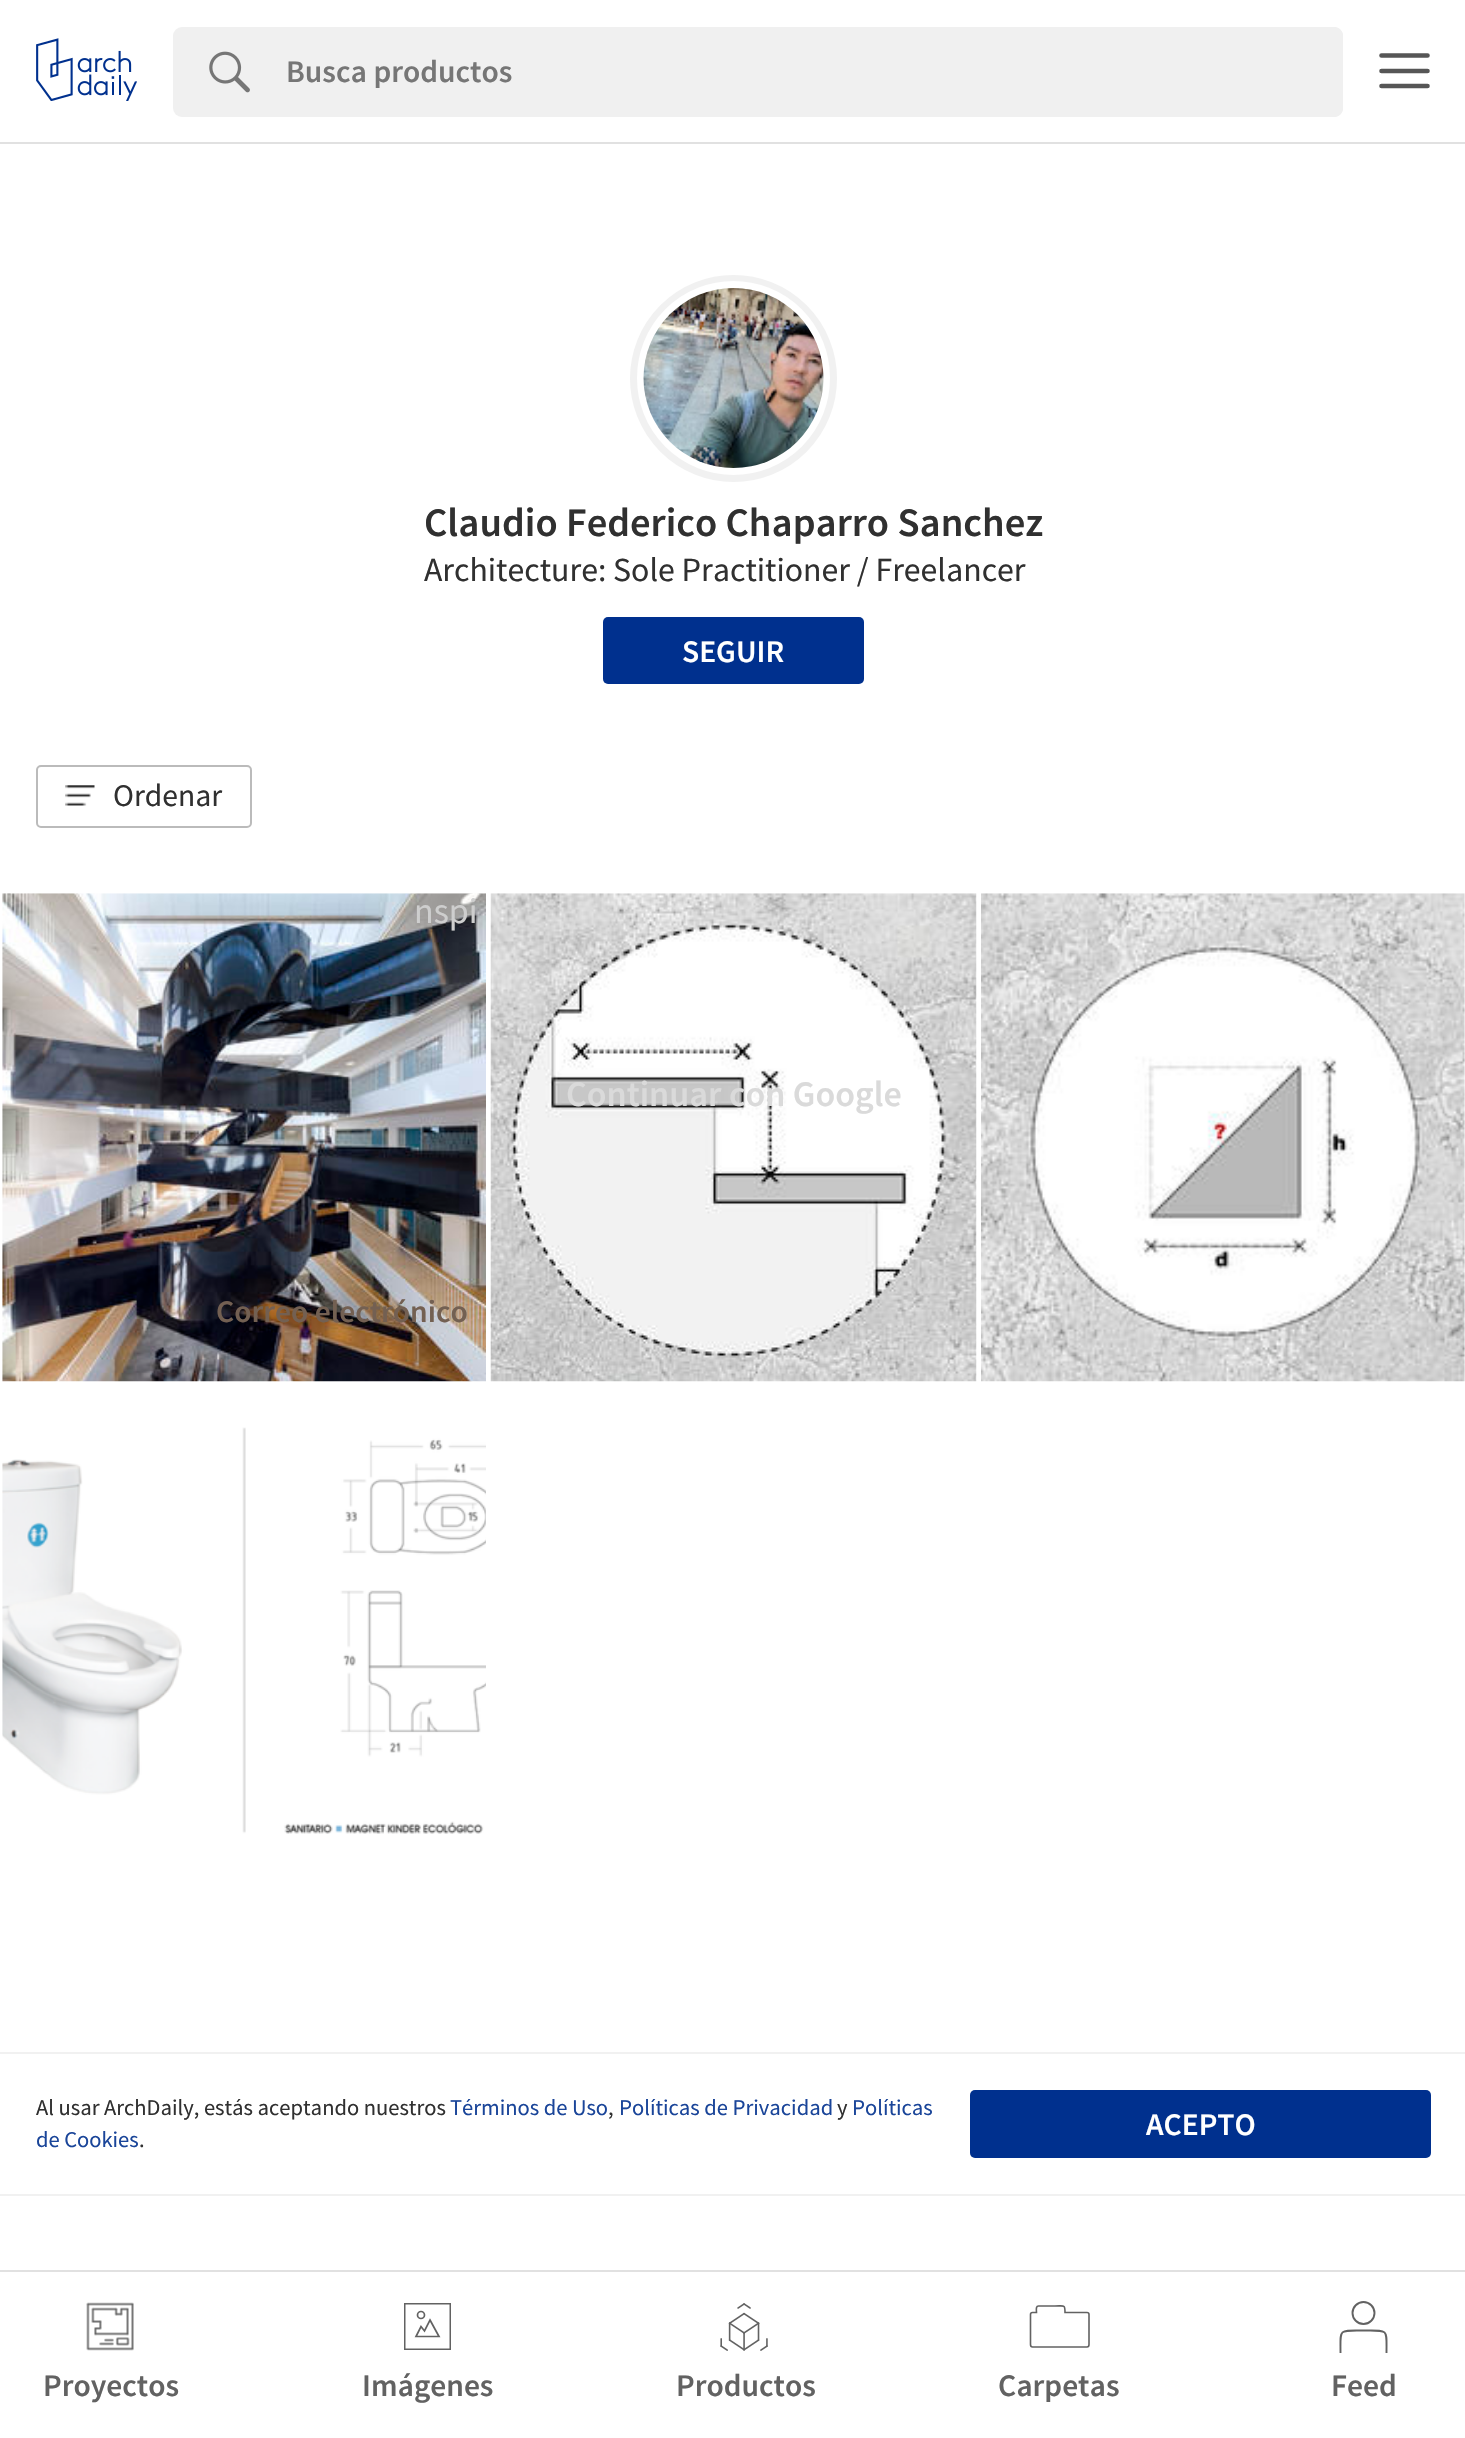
void draw(SkCanvas* canvas) {
    SkPaint paint;
    paint.setAntiAlias(true);
    auto face = [&](const char* family, int weight, float size, bool italic = false) {
        SkFontStyle style(weight, SkFontStyle::kNormal_Width,
            italic ? SkFontStyle::kItalic_Slant : SkFontStyle::kUpright_Slant);
        SkFont result(fontMgr->matchFamilyStyle(family, style), size);
        result.setSubpixel(true);
        return result;
    };
    auto write = [&](const char* s, float x, float y, const SkFont& font, SkColor color) {
        SkPaint ink(SkColor4f::FromColor(color));
        ink.setAntiAlias(true);
        canvas->drawString(s, x, y, font, ink);
    };
    auto block = [&](float x, float y, float w, float h, SkColor color) {
        SkPaint ink(SkColor4f::FromColor(color));
        ink.setAntiAlias(true);
        canvas->drawRect(SkRect::MakeXYWH(x, y, w, h), ink);
    };
    auto card = [&](float x, float y, float w, float h, float radius, SkColor color) {
        SkPaint ink(SkColor4f::FromColor(color));
        ink.setAntiAlias(true);
        canvas->drawRoundRect(SkRect::MakeXYWH(x, y, w, h), radius, radius, ink);
    };
    auto paste = [&](const char* path, float x, float y, float w, float h) {
        auto image = SkImages::DeferredFromEncodedData(SkData::MakeFromFileName(path));
        canvas->drawImageRect(image, SkRect::MakeXYWH(x, y, w, h), SkSamplingOptions());
    };
    canvas->clear(SK_ColorWHITE);
    block(0, 142, 1465, 2, SkColorSetRGB(225, 225, 225));
    paste("pic1.png", 36, 38, 101, 63);
    card(173, 27, 1170, 90, 9, SkColorSetRGB(240, 240, 240));
    paste("pic2.png", 209, 51, 41, 42);
    paint.setColor(SkColorSetRGB(240, 240, 240));
    canvas->drawPath(SkPathBuilder().moveTo(286, 27).lineTo(1334, 27).cubicTo(1339, 27, 1343, 31, 1343, 36).lineTo(1343, 108).cubicTo(1343, 113, 1339, 117, 1334, 117).lineTo(286, 117).close().detach(), paint);
    auto kFont1 = face("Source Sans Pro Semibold", 600, 31.5f);
    write("Busca productos", 286, 82, kFont1, SkColorSetRGB(118, 118, 118));
    paint.setStyle(SkPaint::kStroke_Style);
    paint.setStrokeWidth(4.6f);
    paint.setStrokeCap(SkPaint::kRound_Cap);
    paint.setColor(SkColorSetRGB(86, 86, 86));
    canvas->drawPath(SkPathBuilder().moveTo(1381.5f, 55.5f).lineTo(1427.5f, 55.5f).moveTo(1381.5f, 71).lineTo(1427.5f, 71).moveTo(1381.5f, 86).lineTo(1427.5f, 86).detach(), paint);
    paint.setStrokeWidth(14);
    paint.setStrokeCap(SkPaint::kButt_Cap);
    paint.setColor(SkColorSetRGB(241, 241, 241));
    canvas->drawCircle(733.5f, 378.5f, 96.5f, paint);
    paint.setStrokeWidth(7);
    paint.setColor(SK_ColorWHITE);
    canvas->drawRoundRect(SkRect::MakeXYWH(640.5f, 284.5f, 186, 187), 93, 93, paint);
    paste("pic3.png", 643, 288, 181, 180);
    auto kFont2 = face("Source Sans Pro Semibold", 600, 40.5f);
    write("Claudio Federico Chaparro Sanchez", 424, 536, kFont2, SkColorSetRGB(48, 48, 48));
    auto kFont3 = face("Source Sans Pro", 400, 33.75f);
    write("Architecture: Sole Practitioner / Freelancer", 424, 581, kFont3, SkColorSetRGB(48, 48, 48));
    card(603, 617, 261, 67, 5, SkColorSetRGB(0, 48, 142));
    write("SEGUIR", 682, 662, kFont1, SK_ColorWHITE);
    paint.setStrokeWidth(2);
    paint.setColor(SkColorSetRGB(187, 187, 187));
    canvas->drawRoundRect(SkRect::MakeXYWH(37, 766, 214, 61), 4, 4, paint);
    paste("pic4.png", 65, 785, 30, 21);
    auto kFont4 = face("Source Sans Pro", 400, 31.5f);
    write("Ordenar", 113, 806, kFont4, SkColorSetRGB(48, 48, 48));
    paste("pic5.png", 2, 893, 484, 489);
    paste("pic6.png", 490, 893, 487, 489);
    paste("pic7.png", 981, 893, 484, 489);
    paste("pic8.png", 2, 1427, 484, 407);
    auto kFont5 = face("Source Sans Pro", 400, 36);
    write("nspi", 414, 923, kFont5, SkColorSetRGB(206, 206, 206));
    auto kFont6 = face("Source Sans Pro Semibold", 600, 36);
    write("Continuar con Google", 566, 1106, kFont6, SkColorSetRGB(218, 218, 218));
    write("Correo electrónico", 216, 1322, kFont1, SkColorSetRGB(115, 96, 82));
    block(0, 2270, 1465, 2, SkColorSetRGB(225, 225, 225));
    block(0, 2052, 1465, 2, SkColorSetRGB(241, 241, 241));
    block(0, 2194, 1465, 2, SkColorSetRGB(241, 241, 241));
    auto kFont7 = face("Source Sans Pro", 400, 22.5f);
    write("Al usar ArchDaily, estás aceptando nuestros", 36, 2115, kFont7, SkColorSetRGB(48, 48, 48));
    write("Términos de Uso", 450, 2115, kFont7, SkColorSetRGB(26, 69, 153));
    write(",", 608, 2115, kFont7, SkColorSetRGB(48, 48, 48));
    write("Políticas de Privacidad", 619, 2115, kFont7, SkColorSetRGB(26, 69, 153));
    write("y", 837, 2115, kFont7, SkColorSetRGB(48, 48, 48));
    write("Políticas", 852, 2115, kFont7, SkColorSetRGB(26, 69, 153));
    write("de Cookies", 36, 2147, kFont7, SkColorSetRGB(26, 69, 153));
    write(".", 139, 2147, kFont7, SkColorSetRGB(48, 48, 48));
    card(970, 2090, 461, 68, 5, SkColorSetRGB(0, 48, 142));
    write("ACEPTO", 1146, 2135, kFont1, SK_ColorWHITE);
    paste("pic9.png", 86, 2302, 48, 49);
    write("Proyectos", 43, 2396, kFont1, SkColorSetRGB(98, 98, 98));
    paint.setStrokeWidth(1.5f);
    paint.setColor(SkColorSetRGB(98, 98, 98));
    canvas->drawRect(SkRect::MakeXYWH(404.75f, 2303.75f, 45.5f, 45.5f), paint);
    paint.setStrokeWidth(1.7f);
    paint.setStrokeCap(SkPaint::kRound_Cap);
    canvas->drawPath(SkPathBuilder().moveTo(430, 2320).lineTo(439, 2336.5f).lineTo(416, 2336.5f).lineTo(421, 2326.5f).lineTo(424.5f, 2331).close().detach(), paint);
    paint.setStrokeCap(SkPaint::kButt_Cap);
    canvas->drawCircle(421, 2315, 3.5f, paint);
    write("Imágenes", 362, 2396, kFont1, SkColorSetRGB(98, 98, 98));
    paste("pic10.png", 720, 2303, 48, 48);
    write("Productos", 676, 2396, kFont1, SkColorSetRGB(98, 98, 98));
    paint.setStrokeWidth(1.6f);
    canvas->drawPath(SkPathBuilder().moveTo(1038.5f, 2306).cubicTo(1035.5f, 2306, 1036.5f, 2310.5f, 1036.5f, 2312.5f).lineTo(1032.5f, 2312.5f).cubicTo(1031.5f, 2312.5f, 1030.5f, 2313, 1030.5f, 2314.5f).lineTo(1030.5f, 2344.5f).cubicTo(1030.5f, 2346, 1031.5f, 2347, 1032.5f, 2347).lineTo(1087, 2347).cubicTo(1088.5f, 2347, 1089, 2346, 1089, 2344.5f).lineTo(1089, 2314.5f).cubicTo(1089, 2313, 1088.5f, 2312.5f, 1087, 2312.5f).lineTo(1065, 2312.5f).cubicTo(1065, 2304, 1064, 2306, 1055, 2306).close().detach(), paint);
    write("Carpetas", 998, 2396, kFont1, SkColorSetRGB(98, 98, 98));
    paint.setStrokeWidth(1.9f);
    canvas->drawCircle(1363.5f, 2313, 11, paint);
    paint.setStrokeCap(SkPaint::kSquare_Cap);
    canvas->drawPath(SkPathBuilder().moveTo(1386.5f, 2352).cubicTo(1386.5f, 2328.5f, 1389, 2330.5f, 1363.5f, 2330.5f).cubicTo(1338, 2330.5f, 1340.5f, 2328.5f, 1340.5f, 2352).detach(), paint);
    write("Feed", 1331, 2396, kFont1, SkColorSetRGB(98, 98, 98));
}
